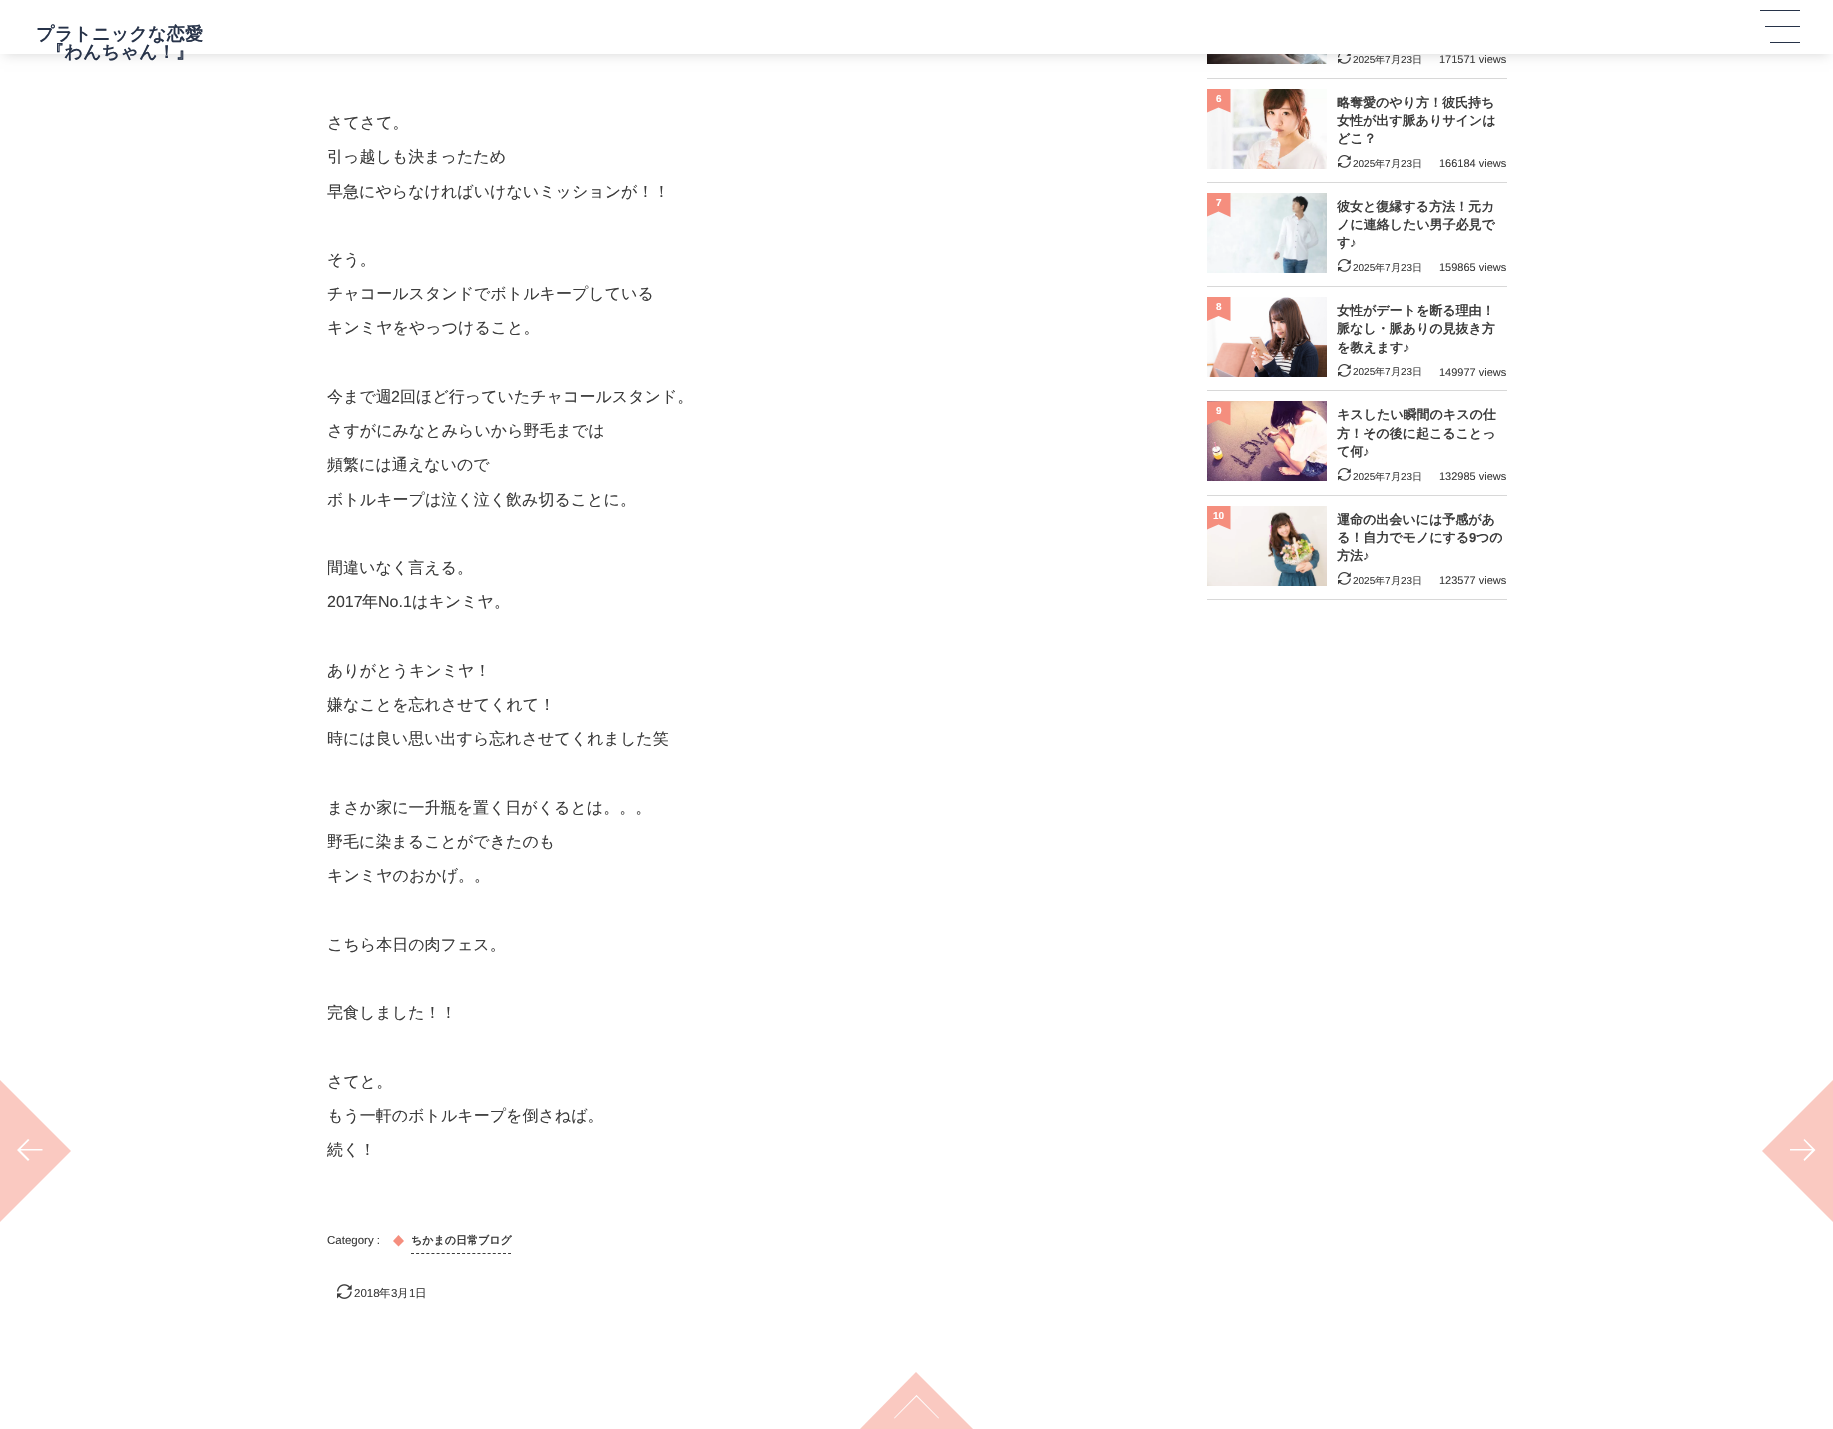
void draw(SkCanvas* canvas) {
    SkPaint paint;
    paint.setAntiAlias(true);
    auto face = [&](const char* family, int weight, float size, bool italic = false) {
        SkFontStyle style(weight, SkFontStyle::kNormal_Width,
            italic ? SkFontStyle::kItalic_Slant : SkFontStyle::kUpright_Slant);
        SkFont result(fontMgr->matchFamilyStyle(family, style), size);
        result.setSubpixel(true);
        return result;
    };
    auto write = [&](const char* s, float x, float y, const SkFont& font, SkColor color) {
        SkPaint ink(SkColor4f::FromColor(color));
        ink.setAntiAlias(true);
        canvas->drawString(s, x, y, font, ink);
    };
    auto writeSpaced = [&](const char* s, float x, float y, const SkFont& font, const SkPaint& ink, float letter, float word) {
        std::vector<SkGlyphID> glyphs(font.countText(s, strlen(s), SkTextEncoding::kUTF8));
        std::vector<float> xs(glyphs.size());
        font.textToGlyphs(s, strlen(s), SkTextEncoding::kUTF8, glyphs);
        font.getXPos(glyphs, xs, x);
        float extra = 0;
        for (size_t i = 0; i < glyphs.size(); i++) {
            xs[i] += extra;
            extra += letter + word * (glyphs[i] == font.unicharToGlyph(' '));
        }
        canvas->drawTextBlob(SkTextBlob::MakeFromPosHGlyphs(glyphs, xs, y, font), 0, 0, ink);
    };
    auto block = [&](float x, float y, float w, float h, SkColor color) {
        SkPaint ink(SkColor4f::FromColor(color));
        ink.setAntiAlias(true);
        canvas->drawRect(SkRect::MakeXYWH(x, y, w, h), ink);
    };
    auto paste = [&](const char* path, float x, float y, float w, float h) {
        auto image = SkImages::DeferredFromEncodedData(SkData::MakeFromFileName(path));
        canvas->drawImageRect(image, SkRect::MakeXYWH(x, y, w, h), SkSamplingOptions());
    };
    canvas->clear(SK_ColorWHITE);
    paste("pic2.png", 1207, 54, 120, 10);
    paste("pic3.png", 1338, 54, 13, 10);
    paint.setColor(SkColorSetARGB(41, 0, 0, 0));
    paint.setMaskFilter(SkMaskFilter::MakeBlur(kNormal_SkBlurStyle, 6));
    canvas->drawRect(SkRect::MakeXYWH(4, -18, 1825, 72), paint);
    paint.setMaskFilter(nullptr);
    block(0, 0, 1833, 54, SK_ColorWHITE);
    auto kFont1 = face("WenQuanYi Zen Hei", 700, 18);
    paint.setColor(SkColorSetRGB(39, 51, 73));
    writeSpaced("プラトニックな恋愛", 36, 40, kFont1, paint, 0.25f, 0);
    writeSpaced("『わんちゃん！』", 46, 58, kFont1, paint, 0.25f, 0);
    block(1760, 10, 40, 1, SkColorSetRGB(39, 51, 73));
    block(1765, 26, 35, 1, SkColorSetRGB(39, 51, 73));
    block(1770, 42, 30, 1, SkColorSetRGB(39, 51, 73));
    auto kFont2 = face("WenQuanYi Zen Hei", 500, 16);
    write("さてさて。", 327, 128, kFont2, SkColorSetRGB(60, 60, 60));
    write("引っ越しも決まったため", 327, 162, kFont2, SkColorSetRGB(60, 60, 60));
    write("早急にやらなければいけないミッションが！！", 327, 197, kFont2, SkColorSetRGB(60, 60, 60));
    write("そう。", 327, 265, kFont2, SkColorSetRGB(60, 60, 60));
    write("チャコールスタンドでボトルキープしている", 327, 299, kFont2, SkColorSetRGB(60, 60, 60));
    write("キンミヤをやっつけること。", 327, 333, kFont2, SkColorSetRGB(60, 60, 60));
    write("今まで週", 327, 402, kFont2, SkColorSetRGB(60, 60, 60));
    auto kFont3 = face("Liberation Sans", 400, 16);
    write("2", 391, 402, kFont3, SkColorSetRGB(60, 60, 60));
    write("回ほど行っていたチャコールスタンド。", 400, 402, kFont2, SkColorSetRGB(60, 60, 60));
    write("さすがにみなとみらいから野毛までは", 327, 436, kFont2, SkColorSetRGB(60, 60, 60));
    write("頻繁には通えないので", 327, 470, kFont2, SkColorSetRGB(60, 60, 60));
    write("ボトルキープは泣く泣く飲み切ることに。", 327, 505, kFont2, SkColorSetRGB(60, 60, 60));
    write("間違いなく言える。", 327, 573, kFont2, SkColorSetRGB(60, 60, 60));
    write("2017", 327, 607, kFont3, SkColorSetRGB(60, 60, 60));
    write("年", 362, 607, kFont2, SkColorSetRGB(60, 60, 60));
    write("No.1", 378, 607, kFont3, SkColorSetRGB(60, 60, 60));
    write("はキンミヤ。", 412, 607, kFont2, SkColorSetRGB(60, 60, 60));
    write("ありがとうキンミヤ！", 327, 676, kFont2, SkColorSetRGB(60, 60, 60));
    write("嫌なことを忘れさせてくれて！", 327, 710, kFont2, SkColorSetRGB(60, 60, 60));
    write("時には良い思い出すら忘れさせてくれました笑", 327, 744, kFont2, SkColorSetRGB(60, 60, 60));
    write("まさか家に一升瓶を置く日がくるとは。。。", 327, 813, kFont2, SkColorSetRGB(60, 60, 60));
    write("野毛に染まることができたのも", 327, 847, kFont2, SkColorSetRGB(60, 60, 60));
    write("キンミヤのおかげ。。", 327, 881, kFont2, SkColorSetRGB(60, 60, 60));
    write("こちら本日の肉フェス。", 327, 950, kFont2, SkColorSetRGB(60, 60, 60));
    write("完食しました！！", 327, 1018, kFont2, SkColorSetRGB(60, 60, 60));
    write("さてと。", 327, 1087, kFont2, SkColorSetRGB(60, 60, 60));
    write("もう一軒のボトルキープを倒さねば。", 327, 1121, kFont2, SkColorSetRGB(60, 60, 60));
    write("続く！", 327, 1155, kFont2, SkColorSetRGB(60, 60, 60));
    auto kFont4 = face("Liberation Sans", 400, 11.5f);
    write("Category :", 327, 1244, kFont4, SkColorSetRGB(60, 60, 60));
    paint.setColor(SkColorSetRGB(245, 142, 126));
    canvas->drawPath(SkPathBuilder().moveTo(398.5f, 1235).lineTo(404, 1241).lineTo(398.5f, 1246.5f).lineTo(393, 1241).close().detach(), paint);
    paint.setStyle(SkPaint::kStroke_Style);
    paint.setStrokeWidth(1);
    paint.setColor(SkColorSetRGB(60, 60, 60));
    paint.setPathEffect(SkDashPathEffect::Make({{3, 2.11f}}, 0));
    canvas->drawPath(SkPathBuilder().moveTo(411, 1253.5f).lineTo(511, 1253.5f).detach(), paint);
    paint.setPathEffect(nullptr);
    auto kFont5 = face("WenQuanYi Zen Hei", 700, 11);
    write("ちかまの日常ブログ", 411, 1244, kFont5, SkColorSetRGB(60, 60, 60));
    paste("pic1.png", 337, 1284, 15, 15);
    write("2018", 354, 1297, kFont4, SkColorSetRGB(60, 60, 60));
    auto kFont6 = face("WenQuanYi Zen Hei", 500, 11.5f);
    write("年", 379, 1297, kFont6, SkColorSetRGB(60, 60, 60));
    write("3", 391, 1297, kFont4, SkColorSetRGB(60, 60, 60));
    write("月", 397, 1297, kFont6, SkColorSetRGB(60, 60, 60));
    write("1", 409, 1297, kFont4, SkColorSetRGB(60, 60, 60));
    write("日", 415, 1297, kFont6, SkColorSetRGB(60, 60, 60));
    paint.setStyle(SkPaint::kFill_Style);
    paint.setColor(SkColorSetRGB(250, 201, 193));
    canvas->drawPath(SkPathBuilder().moveTo(0, 1080).lineTo(71, 1151).lineTo(0, 1222).lineTo(-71, 1151).close().detach(), paint);
    paint.setColor(SK_ColorWHITE);
    canvas->drawPath(SkPathBuilder().moveTo(28, 1161).lineTo(29.5f, 1159.5f).lineTo(20.5f, 1150.5f).lineTo(42.5f, 1150.5f).lineTo(42.5f, 1149).lineTo(20.5f, 1149).lineTo(29.5f, 1140).lineTo(28, 1139).lineTo(17, 1150).close().detach(), paint);
    paint.setColor(SkColorSetRGB(250, 201, 193));
    canvas->drawPath(SkPathBuilder().moveTo(1833, 1080).lineTo(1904, 1151).lineTo(1833, 1222).lineTo(1762, 1151).close().detach(), paint);
    paint.setColor(SK_ColorWHITE);
    canvas->drawPath(SkPathBuilder().moveTo(1804.5f, 1139).lineTo(1803.5f, 1140).lineTo(1812, 1149).lineTo(1790, 1149).lineTo(1790, 1150.5f).lineTo(1812, 1150.5f).lineTo(1803.5f, 1159.5f).lineTo(1804.5f, 1161).lineTo(1815.5f, 1150).close().detach(), paint);
    block(1207, 78, 300, 1, SkColorSetRGB(216, 216, 216));
    auto kFont7 = face("Liberation Sans", 400, 10);
    write("2025", 1353, 63, kFont7, SkColorSetRGB(60, 60, 60));
    auto kFont8 = face("WenQuanYi Zen Hei", 500, 10);
    write("年", 1375, 63, kFont8, SkColorSetRGB(60, 60, 60));
    write("7", 1385, 63, kFont7, SkColorSetRGB(60, 60, 60));
    write("月", 1391, 63, kFont8, SkColorSetRGB(60, 60, 60));
    write("23", 1401, 63, kFont7, SkColorSetRGB(60, 60, 60));
    write("日", 1412, 63, kFont8, SkColorSetRGB(60, 60, 60));
    auto kFont9 = face("Liberation Sans", 400, 11);
    write("171571 views", 1439, 63, kFont9, SkColorSetRGB(60, 60, 60));
    block(1207, 182, 300, 1, SkColorSetRGB(216, 216, 216));
    paste("pic4.png", 1207, 89, 120, 80);
    paint.setColor(SkColorSetRGB(245, 142, 126));
    canvas->drawPath(SkPathBuilder().moveTo(1207, 89).lineTo(1230.5f, 89).lineTo(1230.5f, 112.5f).lineTo(1218.5f, 107.5f).lineTo(1207, 112.5f).close().detach(), paint);
    auto kFont10 = face("Liberation Sans", 700, 10);
    write("6", 1216, 102, kFont10, SK_ColorWHITE);
    auto kFont11 = face("WenQuanYi Zen Hei", 700, 13);
    write("略奪愛のやり方！彼氏持ち", 1337, 107, kFont11, SkColorSetRGB(60, 60, 60));
    write("女性が出す脈ありサインは", 1337, 125, kFont11, SkColorSetRGB(60, 60, 60));
    write("どこ？", 1337, 143, kFont11, SkColorSetRGB(60, 60, 60));
    paste("pic5.png", 1338, 155, 13, 13);
    write("2025", 1353, 167, kFont7, SkColorSetRGB(60, 60, 60));
    write("年", 1375, 167, kFont8, SkColorSetRGB(60, 60, 60));
    write("7", 1385, 167, kFont7, SkColorSetRGB(60, 60, 60));
    write("月", 1391, 167, kFont8, SkColorSetRGB(60, 60, 60));
    write("23", 1401, 167, kFont7, SkColorSetRGB(60, 60, 60));
    write("日", 1412, 167, kFont8, SkColorSetRGB(60, 60, 60));
    write("166184 views", 1439, 167, kFont9, SkColorSetRGB(60, 60, 60));
    block(1207, 286, 300, 1, SkColorSetRGB(216, 216, 216));
    paste("pic6.png", 1207, 193, 120, 80);
    canvas->drawPath(SkPathBuilder().moveTo(1207, 193).lineTo(1230.5f, 193).lineTo(1230.5f, 217).lineTo(1218.5f, 211.5f).lineTo(1207, 216.5f).close().detach(), paint);
    write("7", 1216, 206, kFont10, SK_ColorWHITE);
    write("彼女と復縁する方法！元カ", 1337, 211, kFont11, SkColorSetRGB(60, 60, 60));
    write("ノに連絡したい男子必見で", 1337, 229, kFont11, SkColorSetRGB(60, 60, 60));
    write("す", 1337, 247, kFont11, SkColorSetRGB(60, 60, 60));
    auto kFont12 = face("Liberation Sans", 700, 13);
    write("♪", 1350, 247, kFont12, SkColorSetRGB(60, 60, 60));
    paste("pic5.png", 1338, 259, 13, 13);
    write("2025", 1353, 271, kFont7, SkColorSetRGB(60, 60, 60));
    write("年", 1375, 271, kFont8, SkColorSetRGB(60, 60, 60));
    write("7", 1385, 271, kFont7, SkColorSetRGB(60, 60, 60));
    write("月", 1391, 271, kFont8, SkColorSetRGB(60, 60, 60));
    write("23", 1401, 271, kFont7, SkColorSetRGB(60, 60, 60));
    write("日", 1412, 271, kFont8, SkColorSetRGB(60, 60, 60));
    write("159865 views", 1439, 271, kFont9, SkColorSetRGB(60, 60, 60));
    block(1207, 390, 300, 1, SkColorSetRGB(216, 216, 216));
    paste("pic7.png", 1207, 297, 120, 80);
    canvas->drawPath(SkPathBuilder().moveTo(1230.5f, 297).lineTo(1230.5f, 321).lineTo(1218.5f, 316).lineTo(1207, 321).lineTo(1207, 297).close().detach(), paint);
    write("8", 1216, 310, kFont10, SK_ColorWHITE);
    write("女性がデートを断る理由！", 1337, 315, kFont11, SkColorSetRGB(60, 60, 60));
    write("脈なし・脈ありの見抜き方", 1337, 333, kFont11, SkColorSetRGB(60, 60, 60));
    write("を教えます", 1337, 352, kFont11, SkColorSetRGB(60, 60, 60));
    write("♪", 1403, 352, kFont12, SkColorSetRGB(60, 60, 60));
    paste("pic5.png", 1338, 364, 13, 13);
    write("2025", 1353, 375, kFont7, SkColorSetRGB(60, 60, 60));
    write("年", 1375, 375, kFont8, SkColorSetRGB(60, 60, 60));
    write("7", 1385, 375, kFont7, SkColorSetRGB(60, 60, 60));
    write("月", 1391, 375, kFont8, SkColorSetRGB(60, 60, 60));
    write("23", 1401, 375, kFont7, SkColorSetRGB(60, 60, 60));
    write("日", 1412, 375, kFont8, SkColorSetRGB(60, 60, 60));
    write("149977 views", 1439, 376, kFont9, SkColorSetRGB(60, 60, 60));
    block(1207, 495, 300, 1, SkColorSetRGB(216, 216, 216));
    paste("pic8.png", 1207, 401, 120, 80);
    canvas->drawPath(SkPathBuilder().moveTo(1230.5f, 401.5f).lineTo(1230.5f, 425).lineTo(1229.5f, 425).lineTo(1218.5f, 420).lineTo(1207, 425).lineTo(1207, 401.5f).close().detach(), paint);
    write("9", 1216, 414, kFont10, SK_ColorWHITE);
    write("キスしたい瞬間のキスの仕", 1337, 419, kFont11, SkColorSetRGB(60, 60, 60));
    write("方！その後に起こることっ", 1337, 438, kFont11, SkColorSetRGB(60, 60, 60));
    write("て何", 1337, 456, kFont11, SkColorSetRGB(60, 60, 60));
    write("♪", 1363, 456, kFont12, SkColorSetRGB(60, 60, 60));
    paste("pic5.png", 1338, 468, 13, 13);
    write("2025", 1353, 480, kFont7, SkColorSetRGB(60, 60, 60));
    write("年", 1375, 480, kFont8, SkColorSetRGB(60, 60, 60));
    write("7", 1385, 480, kFont7, SkColorSetRGB(60, 60, 60));
    write("月", 1391, 480, kFont8, SkColorSetRGB(60, 60, 60));
    write("23", 1401, 480, kFont7, SkColorSetRGB(60, 60, 60));
    write("日", 1412, 480, kFont8, SkColorSetRGB(60, 60, 60));
    write("132985 views", 1439, 480, kFont9, SkColorSetRGB(60, 60, 60));
    block(1207, 599, 300, 1, SkColorSetRGB(216, 216, 216));
    paste("pic9.png", 1207, 506, 120, 80);
    canvas->drawPath(SkPathBuilder().moveTo(1207, 506).lineTo(1230.5f, 506).lineTo(1230.5f, 529.5f).lineTo(1218.5f, 524.5f).lineTo(1207, 529.5f).close().detach(), paint);
    write("10", 1213, 519, kFont10, SK_ColorWHITE);
    write("運命の出会いには予感があ", 1337, 524, kFont11, SkColorSetRGB(60, 60, 60));
    write("る！自力でモノにする", 1337, 542, kFont11, SkColorSetRGB(60, 60, 60));
    write("9", 1469, 542, kFont12, SkColorSetRGB(60, 60, 60));
    write("つの", 1476, 542, kFont11, SkColorSetRGB(60, 60, 60));
    write("方法", 1337, 560, kFont11, SkColorSetRGB(60, 60, 60));
    write("♪", 1363, 560, kFont12, SkColorSetRGB(60, 60, 60));
    paste("pic5.png", 1338, 572, 13, 13);
    write("2025", 1353, 584, kFont7, SkColorSetRGB(60, 60, 60));
    write("年", 1375, 584, kFont8, SkColorSetRGB(60, 60, 60));
    write("7", 1385, 584, kFont7, SkColorSetRGB(60, 60, 60));
    write("月", 1391, 584, kFont8, SkColorSetRGB(60, 60, 60));
    write("23", 1401, 584, kFont7, SkColorSetRGB(60, 60, 60));
    write("日", 1412, 584, kFont8, SkColorSetRGB(60, 60, 60));
    write("123577 views", 1439, 584, kFont9, SkColorSetRGB(60, 60, 60));
    paint.setColor(SkColorSetRGB(250, 201, 193));
    canvas->drawPath(SkPathBuilder().moveTo(916, 1372).lineTo(973, 1429).lineTo(916, 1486).lineTo(860, 1429).close().detach(), paint);
    paint.setColor(SK_ColorWHITE);
    canvas->drawPath(SkPathBuilder().moveTo(894, 1418).lineTo(916.5f, 1395).lineTo(917, 1396).lineTo(894.5f, 1418.5f).close().detach(), paint);
    canvas->drawPath(SkPathBuilder().moveTo(916.5f, 1395).lineTo(939, 1418).lineTo(938.5f, 1418.5f).lineTo(916, 1396).close().detach(), paint);
}
